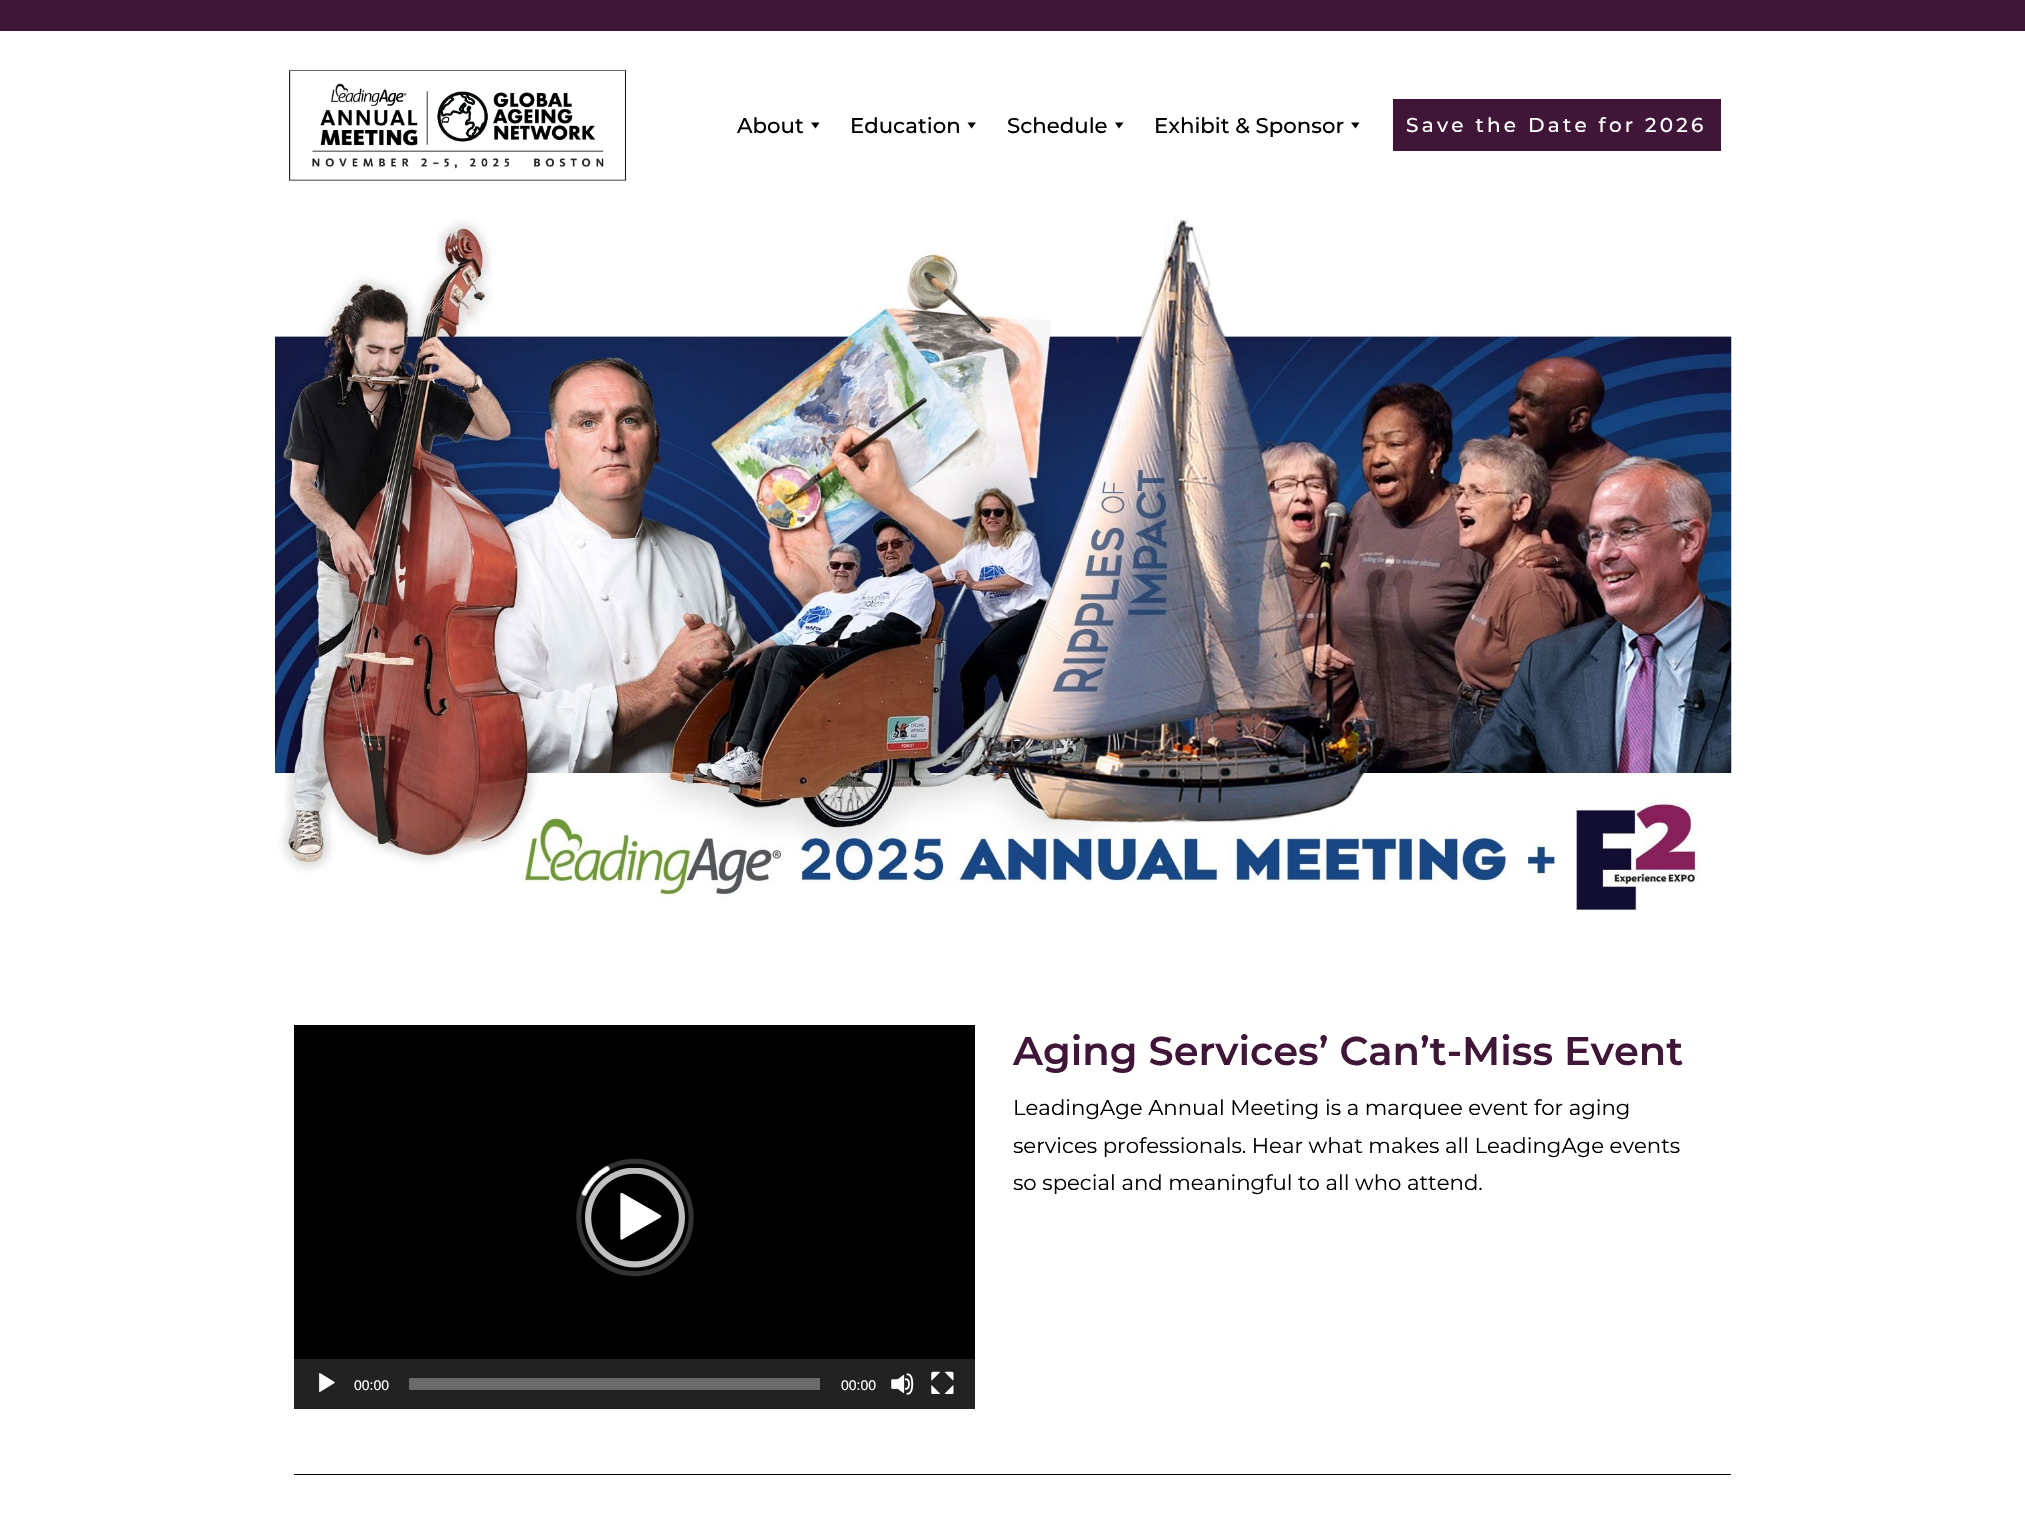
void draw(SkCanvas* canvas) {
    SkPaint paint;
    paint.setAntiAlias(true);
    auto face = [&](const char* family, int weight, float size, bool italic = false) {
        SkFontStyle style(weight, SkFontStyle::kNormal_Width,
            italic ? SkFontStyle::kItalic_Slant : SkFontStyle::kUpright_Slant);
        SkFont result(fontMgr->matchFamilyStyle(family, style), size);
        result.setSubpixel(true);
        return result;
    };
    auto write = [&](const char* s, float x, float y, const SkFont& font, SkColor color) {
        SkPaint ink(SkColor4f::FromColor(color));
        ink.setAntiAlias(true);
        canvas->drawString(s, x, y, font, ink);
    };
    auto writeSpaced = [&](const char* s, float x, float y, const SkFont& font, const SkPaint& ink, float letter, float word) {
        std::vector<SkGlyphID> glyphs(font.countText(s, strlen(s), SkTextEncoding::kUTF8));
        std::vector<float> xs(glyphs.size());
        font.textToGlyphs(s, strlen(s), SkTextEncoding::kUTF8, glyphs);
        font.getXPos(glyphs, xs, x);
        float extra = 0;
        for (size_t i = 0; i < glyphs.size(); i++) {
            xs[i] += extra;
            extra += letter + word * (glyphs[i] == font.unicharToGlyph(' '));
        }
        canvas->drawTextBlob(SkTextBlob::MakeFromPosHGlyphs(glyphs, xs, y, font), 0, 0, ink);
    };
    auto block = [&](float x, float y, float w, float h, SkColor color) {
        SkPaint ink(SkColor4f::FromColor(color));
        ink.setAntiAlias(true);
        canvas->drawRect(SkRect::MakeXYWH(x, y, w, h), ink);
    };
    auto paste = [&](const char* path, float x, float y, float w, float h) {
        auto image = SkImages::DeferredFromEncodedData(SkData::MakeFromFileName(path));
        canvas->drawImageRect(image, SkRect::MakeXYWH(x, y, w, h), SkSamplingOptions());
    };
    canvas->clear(SK_ColorWHITE);
    block(0, 0, 2025, 31, SkColorSetRGB(64, 22, 56));
    paste("pic1.png", 289, 69, 338, 112);
    auto kFont1 = face("Montserrat", 500, 21.25f);
    write("About", 737, 133, kFont1, SK_ColorBLACK);
    paint.setColor(SK_ColorBLACK);
    canvas->drawPath(SkPathBuilder().moveTo(819.5f, 122.5f).lineTo(815.5f, 128.5f).lineTo(811, 122.5f).close().detach(), paint);
    write("Education", 850, 133, kFont1, SK_ColorBLACK);
    canvas->drawPath(SkPathBuilder().moveTo(976, 122.5f).lineTo(971.5f, 128.5f).lineTo(967.5f, 122.5f).close().detach(), paint);
    write("Schedule", 1007, 133, kFont1, SK_ColorBLACK);
    canvas->drawPath(SkPathBuilder().moveTo(1123.5f, 122.5f).lineTo(1119, 128.5f).lineTo(1115, 122.5f).close().detach(), paint);
    write("Exhibit & Sponsor", 1154, 133, kFont1, SK_ColorBLACK);
    canvas->drawPath(SkPathBuilder().moveTo(1359.5f, 122.5f).lineTo(1355.5f, 128.5f).lineTo(1351, 122.5f).close().detach(), paint);
    block(1393, 99, 328, 52, SkColorSetRGB(64, 22, 56));
    auto kFont2 = face("Montserrat", 500, 20);
    paint.setColor(SK_ColorWHITE);
    writeSpaced("Save the Date for 2026", 1406, 132, kFont2, paint, 3.25f, 0);
    paste("pic2.png", 275, 219, 1457, 696);
    auto kFont3 = face("Montserrat", 600, 40);
    write("Aging Services’ Can’t-Miss Event", 1013, 1065, kFont3, SkColorSetRGB(64, 22, 56));
    auto kFont4 = face("Montserrat", 400, 21.25f);
    write("LeadingAge Annual Meeting is a marquee event for aging", 1013, 1115, kFont4, SK_ColorBLACK);
    write("services professionals. Hear what makes all LeadingAge events", 1013, 1153, kFont4, SK_ColorBLACK);
    write("so special and meaningful to all who attend.", 1013, 1190, kFont4, SK_ColorBLACK);
    paste("pic3.png", 294, 1025, 681, 334);
    paste("pic4.png", 585, 1168, 100, 100);
    block(294, 1359, 681, 50, SkColorSetRGB(34, 34, 34));
    paste("pic5.png", 319, 1373, 16, 19);
    auto kFont5 = face("Liberation Sans", 400, 14);
    write("00:00", 354, 1390, kFont5, SK_ColorWHITE);
    block(409, 1378, 411, 12, SkColorSetRGB(107, 107, 107));
    write("00:00", 841, 1390, kFont5, SK_ColorWHITE);
    paste("pic6.png", 891, 1373, 23, 22);
    paste("pic7.png", 931, 1371, 23, 23);
    block(294, 1474, 1437, 1, SK_ColorBLACK);
}
